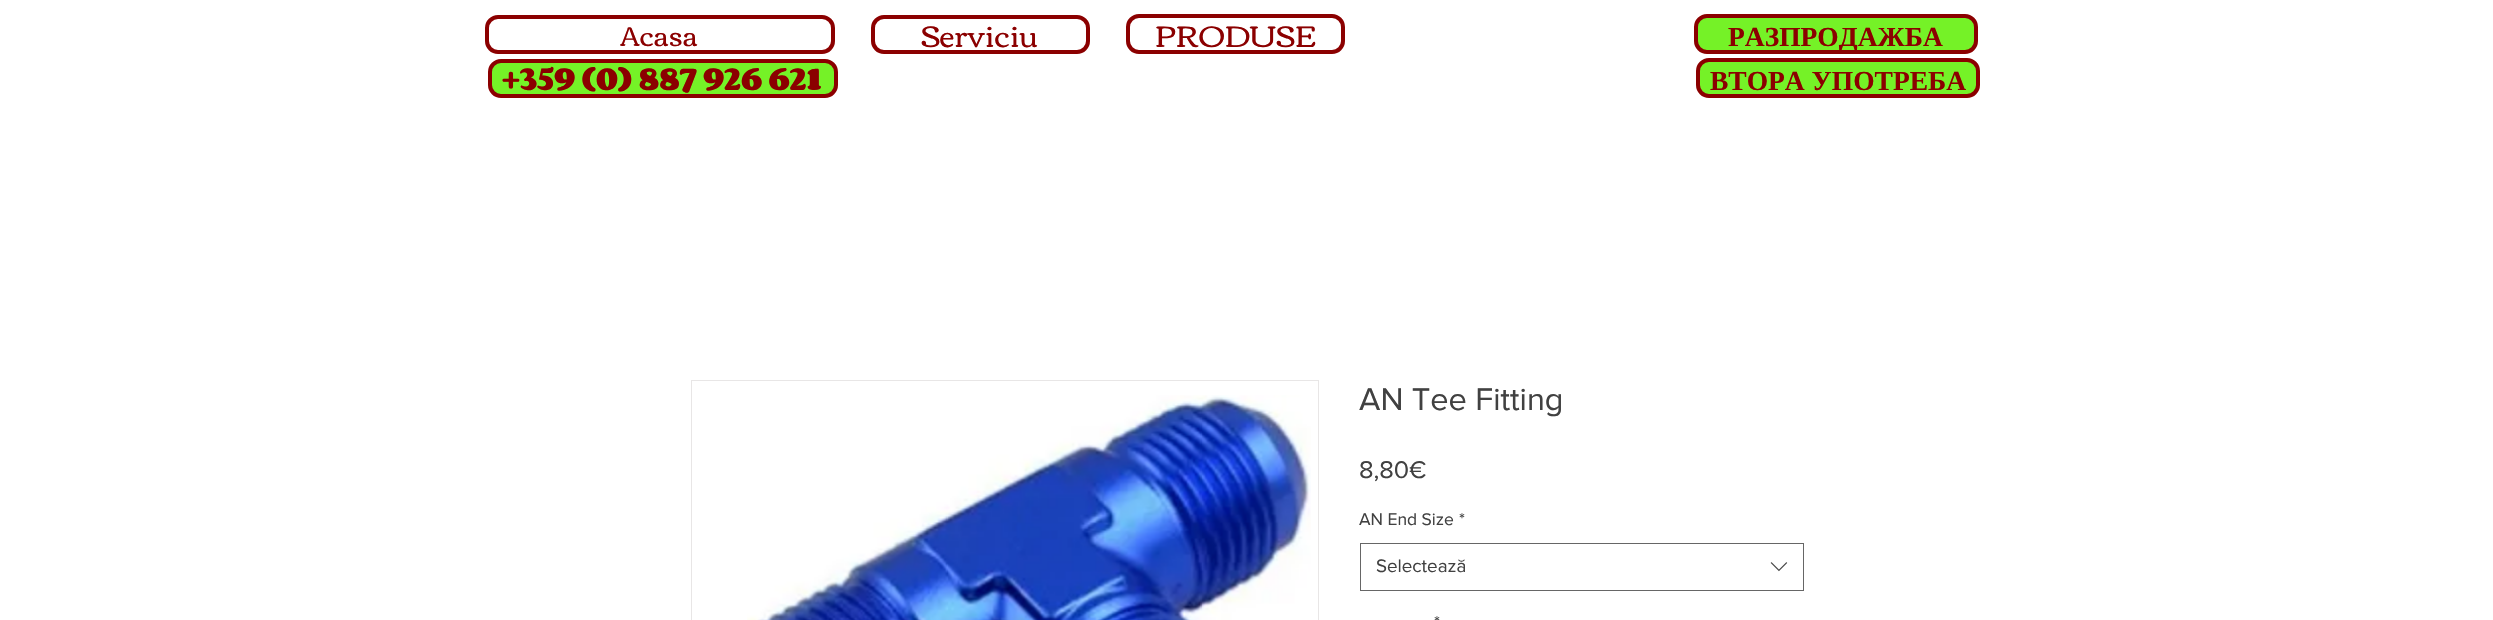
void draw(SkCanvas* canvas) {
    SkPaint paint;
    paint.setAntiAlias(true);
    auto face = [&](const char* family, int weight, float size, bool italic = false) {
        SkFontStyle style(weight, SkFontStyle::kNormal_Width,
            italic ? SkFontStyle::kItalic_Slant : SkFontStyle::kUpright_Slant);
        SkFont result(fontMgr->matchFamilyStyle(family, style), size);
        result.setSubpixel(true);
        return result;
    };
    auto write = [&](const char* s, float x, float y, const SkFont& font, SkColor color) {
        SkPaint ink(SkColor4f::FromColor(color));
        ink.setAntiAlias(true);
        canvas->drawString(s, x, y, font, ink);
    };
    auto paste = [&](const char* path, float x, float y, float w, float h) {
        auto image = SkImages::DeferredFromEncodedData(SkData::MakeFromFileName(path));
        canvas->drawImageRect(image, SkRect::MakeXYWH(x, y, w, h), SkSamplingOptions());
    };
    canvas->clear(SK_ColorWHITE);
    paint.setStyle(SkPaint::kStroke_Style);
    paint.setStrokeWidth(4);
    paint.setColor(SkColorSetRGB(139, 0, 0));
    canvas->drawRoundRect(SkRect::MakeXYWH(487, 17, 346, 35), 11, 11, paint);
    auto kFont1 = face("Corben", 400, 27.5f);
    write("Acasa", 620, 46, kFont1, SkColorSetRGB(139, 0, 0));
    canvas->drawRoundRect(SkRect::MakeXYWH(873, 17, 215, 35), 11, 11, paint);
    auto kFont2 = face("Corben", 400, 30);
    write("Serviciu", 921, 47, kFont2, SkColorSetRGB(139, 0, 0));
    canvas->drawRoundRect(SkRect::MakeXYWH(1128, 16, 215, 36), 11, 11, paint);
    write("PRODUSE", 1155, 47, kFont2, SkColorSetRGB(139, 0, 0));
    paint.setStyle(SkPaint::kFill_Style);
    paint.setColor(SkColorSetRGB(117, 242, 39));
    canvas->drawRoundRect(SkRect::MakeXYWH(1696, 16, 280, 36), 11, 11, paint);
    paint.setStyle(SkPaint::kStroke_Style);
    paint.setColor(SkColorSetRGB(139, 0, 0));
    canvas->drawRoundRect(SkRect::MakeXYWH(1696, 16, 280, 36), 11, 11, paint);
    auto kFont3 = face("Liberation Serif", 700, 27.5f);
    write("РАЗПРОДАЖБА", 1728, 46, kFont3, SkColorSetRGB(139, 0, 0));
    paint.setStyle(SkPaint::kFill_Style);
    paint.setColor(SkColorSetRGB(117, 242, 39));
    canvas->drawRoundRect(SkRect::MakeXYWH(490, 61, 346, 35), 11, 11, paint);
    paint.setStyle(SkPaint::kStroke_Style);
    paint.setColor(SkColorSetRGB(139, 0, 0));
    canvas->drawRoundRect(SkRect::MakeXYWH(490, 61, 346, 35), 11, 11, paint);
    auto kFont4 = face("Corben", 700, 27.5f);
    write("+359 (0) 887 926 621", 502, 90, kFont4, SkColorSetRGB(139, 0, 0));
    paint.setStyle(SkPaint::kFill_Style);
    paint.setColor(SkColorSetRGB(117, 242, 39));
    canvas->drawRoundRect(SkRect::MakeXYWH(1698, 60, 280, 36), 11, 11, paint);
    paint.setStyle(SkPaint::kStroke_Style);
    paint.setColor(SkColorSetRGB(139, 0, 0));
    canvas->drawRoundRect(SkRect::MakeXYWH(1698, 60, 280, 36), 11, 11, paint);
    write("ВТОРА УПОТРЕБА", 1710, 90, kFont3, SkColorSetRGB(139, 0, 0));
    paint.setStrokeWidth(1);
    paint.setColor(SkColorSetRGB(232, 230, 230));
    canvas->drawRect(SkRect::MakeXYWH(691.5f, 380.5f, 627, 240), paint);
    paste("pic1.png", 747, 395, 564, 225);
    auto kFont5 = face("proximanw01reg", 400, 32.5f);
    write("AN Tee Fitting", 1359, 410, kFont5, SkColorSetRGB(65, 65, 65));
    auto kFont6 = face("proximanw01reg", 400, 25);
    write("8,80€", 1359, 478, kFont6, SkColorSetRGB(65, 65, 65));
    auto kFont7 = face("proximanw01reg", 400, 17.5f);
    write("AN End Size", 1359, 525, kFont7, SkColorSetRGB(65, 65, 65));
    write("*", 1459, 525, kFont7, SkColorSetRGB(65, 65, 65));
    paint.setColor(SkColorSetRGB(102, 102, 102));
    canvas->drawRect(SkRect::MakeXYWH(1360.5f, 543.5f, 443, 47), paint);
    auto kFont8 = face("proximanw01reg", 400, 18.75f);
    write("Selectează", 1376, 572, kFont8, SkColorSetRGB(65, 65, 65));
    paste("pic2.png", 1770, 562, 18, 10);
    write("*", 1434, 628, kFont7, SkColorSetRGB(65, 65, 65));
}
